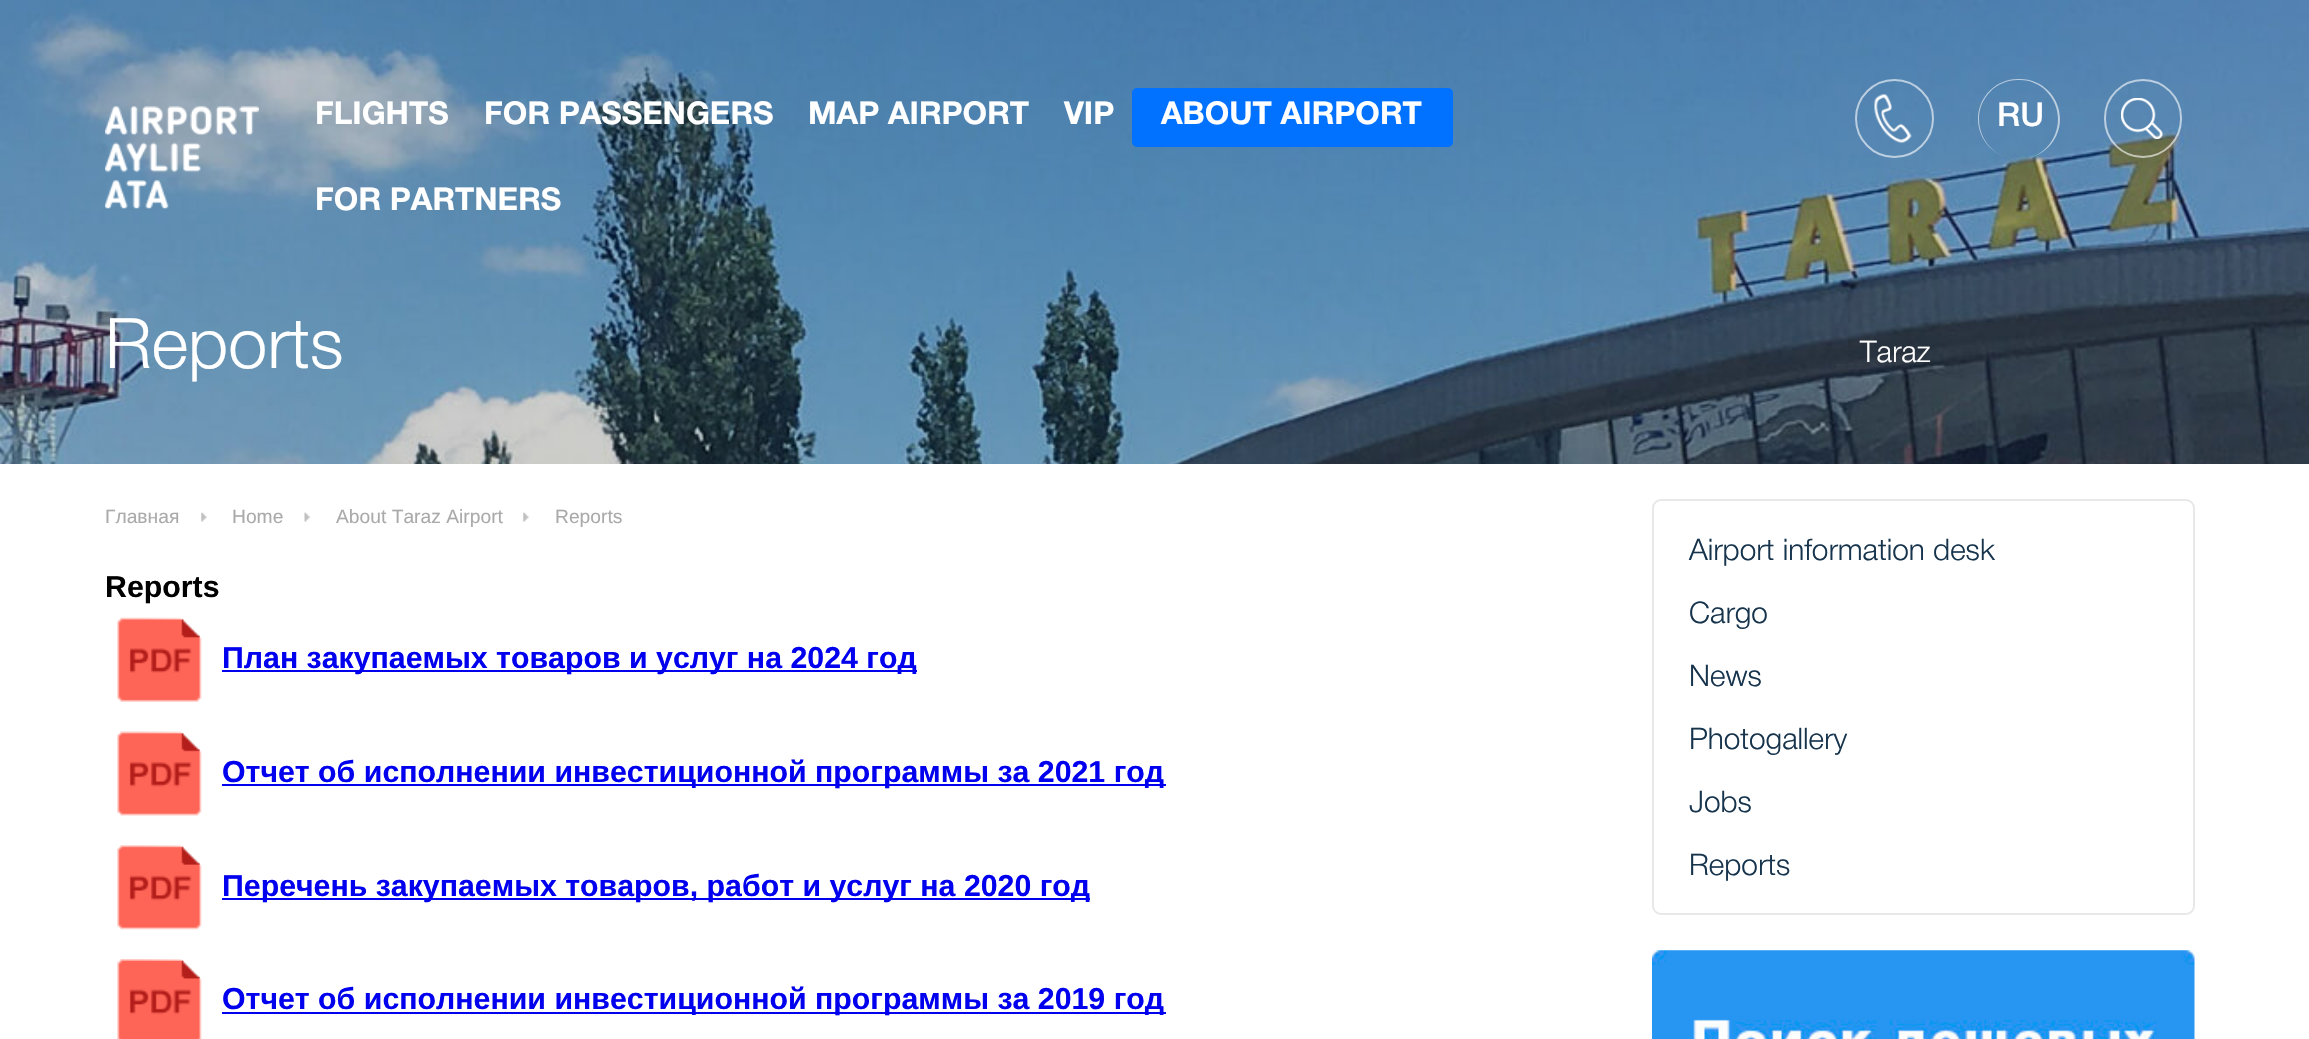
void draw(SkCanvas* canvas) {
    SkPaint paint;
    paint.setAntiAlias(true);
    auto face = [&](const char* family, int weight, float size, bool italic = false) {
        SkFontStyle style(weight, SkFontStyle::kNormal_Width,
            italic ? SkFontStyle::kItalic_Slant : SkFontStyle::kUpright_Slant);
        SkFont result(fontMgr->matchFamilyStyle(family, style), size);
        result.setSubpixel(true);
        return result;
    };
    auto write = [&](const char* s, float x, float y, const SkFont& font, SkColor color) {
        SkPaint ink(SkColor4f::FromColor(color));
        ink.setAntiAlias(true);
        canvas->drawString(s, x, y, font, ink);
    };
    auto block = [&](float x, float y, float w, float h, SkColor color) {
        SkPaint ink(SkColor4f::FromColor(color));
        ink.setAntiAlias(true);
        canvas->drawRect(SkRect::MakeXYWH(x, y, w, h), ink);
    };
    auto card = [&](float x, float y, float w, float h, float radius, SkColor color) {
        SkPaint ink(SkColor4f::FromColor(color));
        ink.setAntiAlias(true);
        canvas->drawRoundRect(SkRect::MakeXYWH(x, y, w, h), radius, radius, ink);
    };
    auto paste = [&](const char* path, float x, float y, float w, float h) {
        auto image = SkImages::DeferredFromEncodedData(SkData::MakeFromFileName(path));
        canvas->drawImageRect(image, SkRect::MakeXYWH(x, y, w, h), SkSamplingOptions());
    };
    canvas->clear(SK_ColorWHITE);
    paste("pic1.png", 0, 0, 2309, 464);
    paste("pic2.png", 105, 106, 154, 103);
    auto kFont1 = face("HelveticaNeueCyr", 700, 31.5f);
    write("FLIGHTS", 315, 124, kFont1, SK_ColorWHITE);
    write("FOR PASSENGERS", 484, 124, kFont1, SK_ColorWHITE);
    write("MAP AIRPORT", 808, 124, kFont1, SK_ColorWHITE);
    write("VIP", 1064, 124, kFont1, SK_ColorWHITE);
    card(1132, 88, 321, 59, 5, SkColorSetRGB(0, 114, 255));
    write("ABOUT AIRPORT", 1161, 124, kFont1, SK_ColorWHITE);
    write("FOR PARTNERS", 315, 210, kFont1, SK_ColorWHITE);
    paste("pic3.png", 1874, 94, 38, 49);
    paint.setStyle(SkPaint::kStroke_Style);
    paint.setStrokeWidth(2);
    paint.setColor(SkColorSetARGB(153, 255, 255, 255));
    canvas->drawCircle(1894.5f, 118.5f, 38.5f, paint);
    paint.setStyle(SkPaint::kFill_Style);
    canvas->drawPath(SkPathBuilder(SkPathFillType::kEvenOdd).moveTo(2018, 79).lineTo(2020, 79).cubicTo(2042, 79, 2060, 97, 2060, 119).cubicTo(2060, 141, 2042, 159, 2020, 159).lineTo(2018, 159).cubicTo(1996, 159, 1978, 141, 1978, 119).cubicTo(1978, 97, 1996, 79, 2018, 79).close().moveTo(2018, 80).lineTo(2020, 80).cubicTo(2041, 80, 2058, 98, 2058, 119).cubicTo(2058, 141, 2041, 159, 2020, 159).lineTo(2018, 159).cubicTo(1996, 159, 1979, 141, 1979, 119).cubicTo(1979, 98, 1996, 80, 2018, 80).close().detach(), paint);
    auto kFont2 = face("HelveticaNeueCyr", 500, 33);
    write("RU", 1997, 126, kFont2, SK_ColorWHITE);
    paste("pic4.png", 2121, 98, 42, 42);
    paint.setStyle(SkPaint::kStroke_Style);
    canvas->drawRoundRect(SkRect::MakeXYWH(2105, 80, 76, 77), 38, 38, paint);
    auto kFont3 = face("HelveticaNeueCyr", 300, 29.75f);
    write("Taraz", 1860, 362, kFont3, SK_ColorWHITE);
    auto kFont4 = face("HelveticaNeueCyr", 300, 70);
    write("Reports", 105, 368, kFont4, SK_ColorWHITE);
    paste("pic5.png", 201, 512, 6, 10);
    auto kFont5 = face("Liberation Sans", 400, 19.25f);
    write("Главная", 105, 523, kFont5, SkColorSetRGB(170, 170, 170));
    paste("pic6.png", 304, 512, 6, 10);
    write("Home", 232, 523, kFont5, SkColorSetRGB(170, 170, 170));
    paste("pic5.png", 523, 512, 6, 10);
    write("About Taraz Airport", 336, 523, kFont5, SkColorSetRGB(170, 170, 170));
    write("Reports", 555, 523, kFont5, SkColorSetRGB(170, 170, 170));
    auto kFont6 = face("Liberation Sans", 700, 30.3f);
    write("Reports", 105, 597, kFont6, SK_ColorBLACK);
    paste("pic7.png", 117, 617, 85, 85);
    block(222, 670, 695, 2, SkColorSetRGB(0, 0, 238));
    write("План закупаемых товаров и услуг на 2024 год", 222, 668, kFont6, SkColorSetRGB(0, 0, 238));
    paste("pic8.png", 117, 731, 85, 85);
    block(222, 784, 944, 2, SkColorSetRGB(0, 0, 238));
    write("Отчет об исполнении инвестиционной программы за 2021 год", 222, 782, kFont6, SkColorSetRGB(0, 0, 238));
    paste("pic9.png", 117, 845, 85, 85);
    block(222, 898, 868, 2, SkColorSetRGB(0, 0, 238));
    write("Перечень закупаемых товаров, работ и услуг на 2020 год", 222, 896, kFont6, SkColorSetRGB(0, 0, 238));
    paste("pic10.png", 117, 959, 85, 80);
    block(222, 1012, 944, 2, SkColorSetRGB(0, 0, 238));
    write("Отчет об исполнении инвестиционной программы за 2019 год", 222, 1009, kFont6, SkColorSetRGB(0, 0, 238));
    paint.setColor(SkColorSetRGB(232, 232, 232));
    canvas->drawRoundRect(SkRect::MakeXYWH(1653, 500, 541, 414), 8, 8, paint);
    write("Airport information desk", 1689, 560, kFont3, SkColorSetRGB(23, 52, 77));
    write("Cargo", 1689, 623, kFont3, SkColorSetRGB(23, 52, 77));
    write("News", 1689, 686, kFont3, SkColorSetRGB(23, 52, 77));
    write("Photogallery", 1689, 749, kFont3, SkColorSetRGB(23, 52, 77));
    write("Jobs", 1689, 812, kFont3, SkColorSetRGB(23, 52, 77));
    write("Reports", 1689, 875, kFont3, SkColorSetRGB(23, 52, 77));
    paste("pic11.png", 1652, 950, 543, 89);
}
